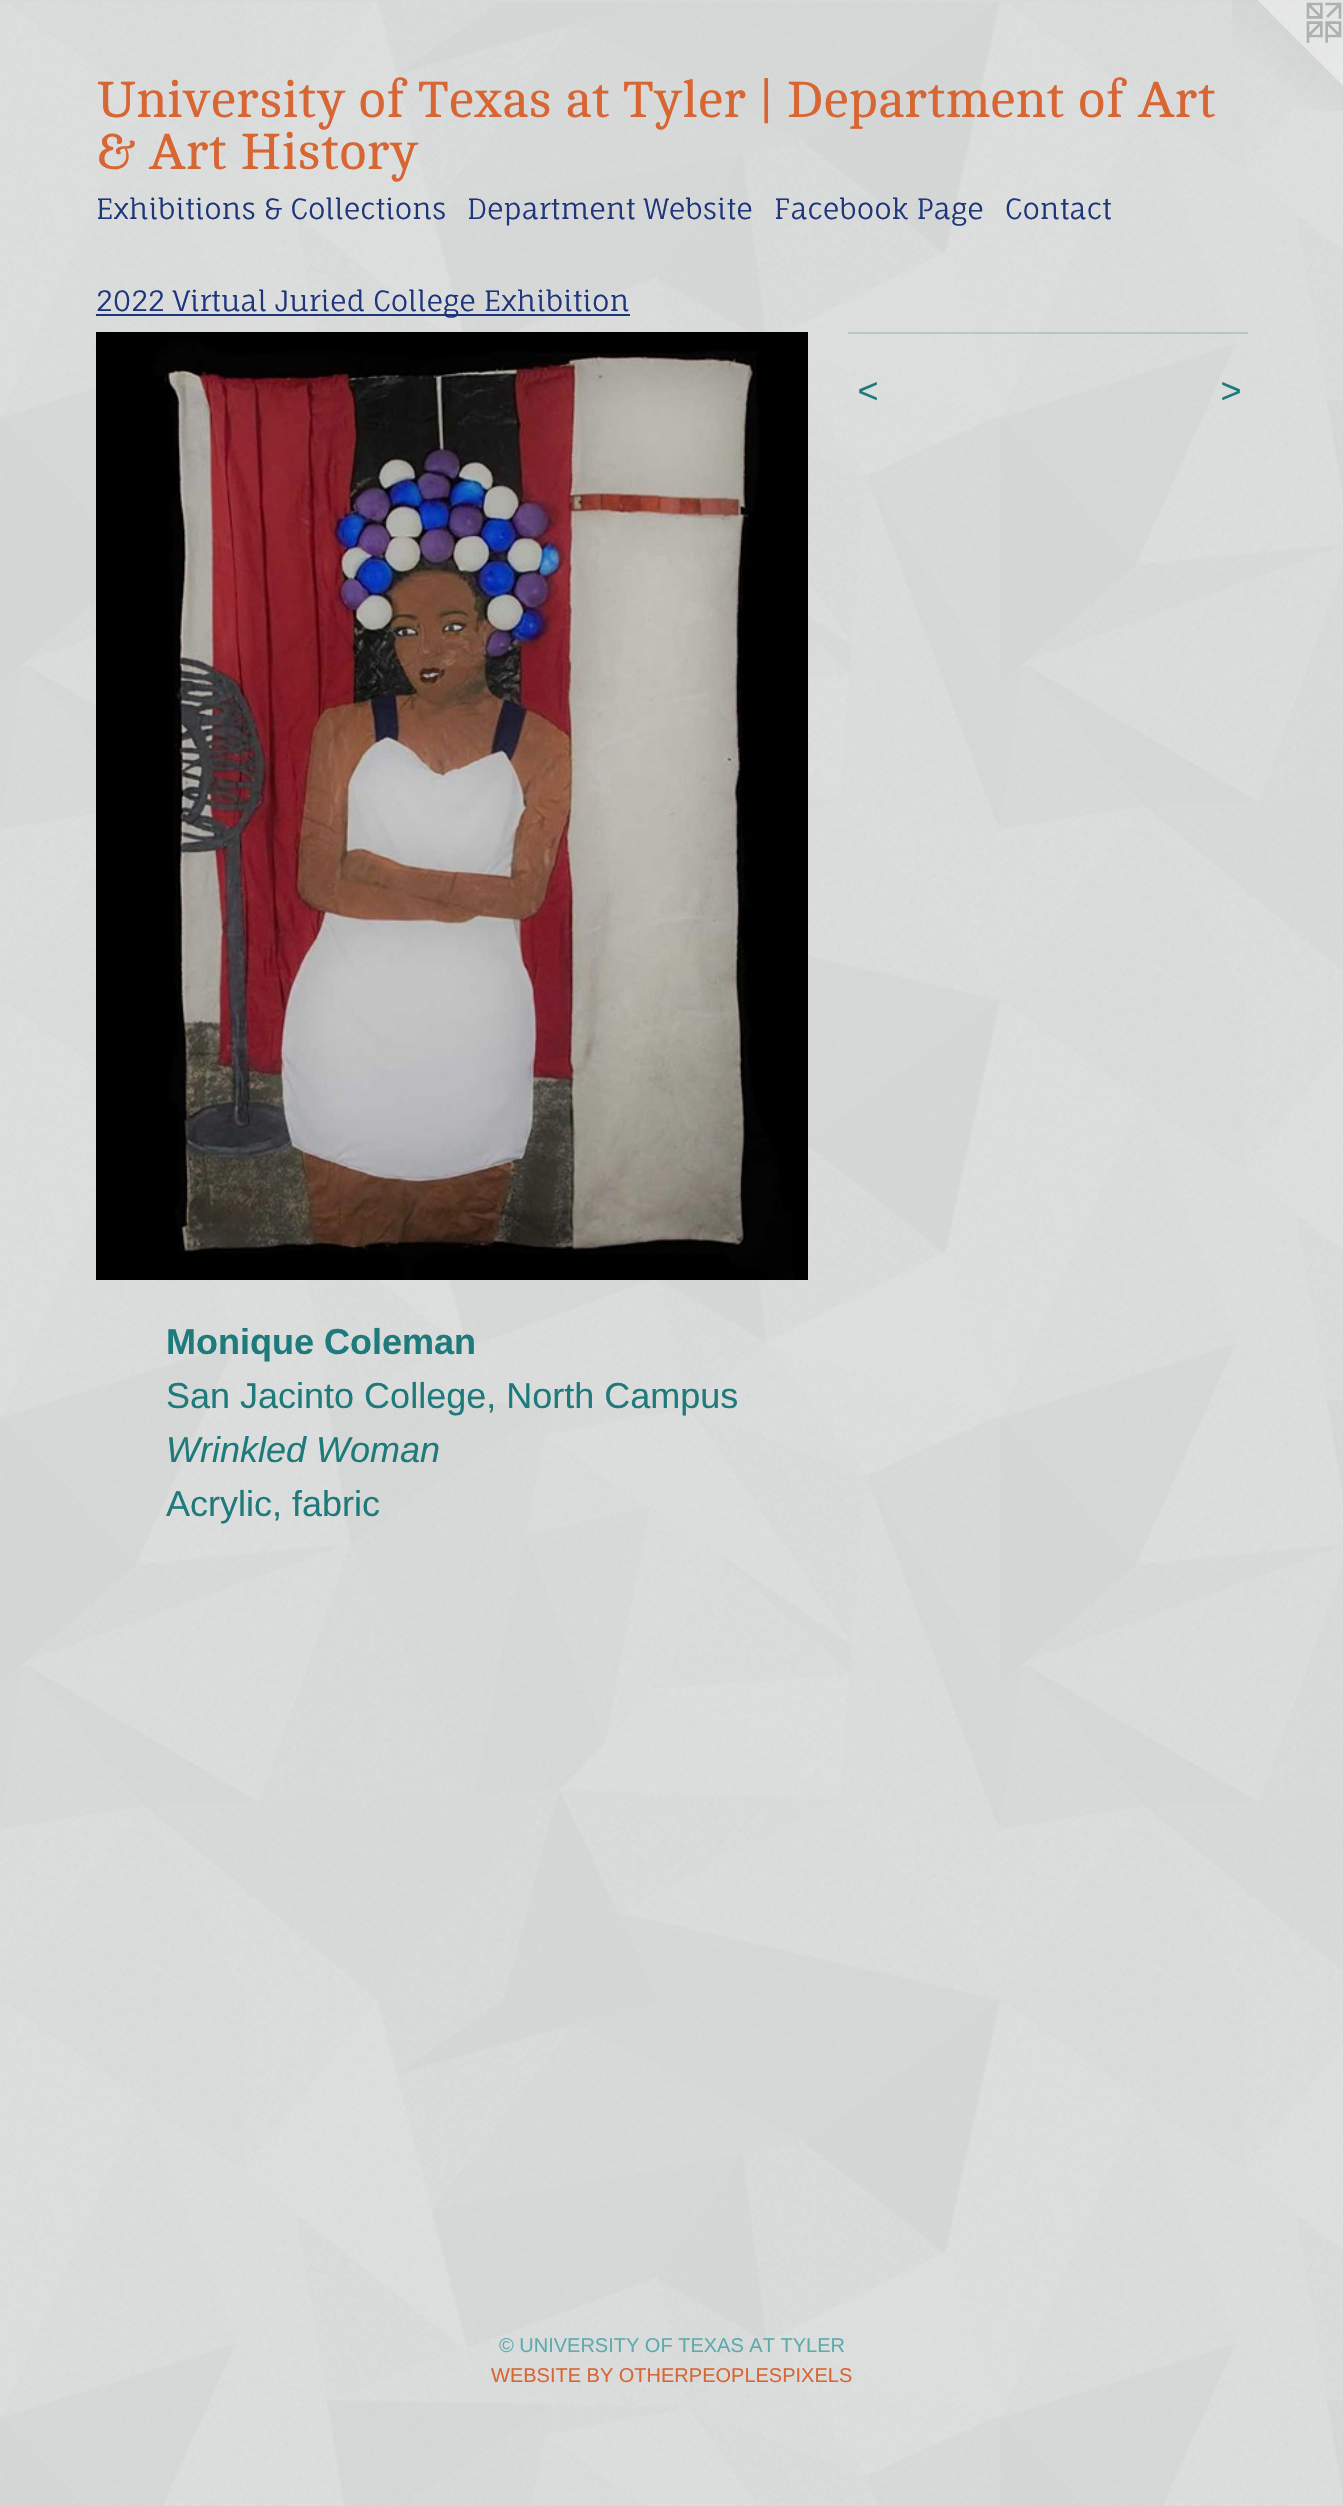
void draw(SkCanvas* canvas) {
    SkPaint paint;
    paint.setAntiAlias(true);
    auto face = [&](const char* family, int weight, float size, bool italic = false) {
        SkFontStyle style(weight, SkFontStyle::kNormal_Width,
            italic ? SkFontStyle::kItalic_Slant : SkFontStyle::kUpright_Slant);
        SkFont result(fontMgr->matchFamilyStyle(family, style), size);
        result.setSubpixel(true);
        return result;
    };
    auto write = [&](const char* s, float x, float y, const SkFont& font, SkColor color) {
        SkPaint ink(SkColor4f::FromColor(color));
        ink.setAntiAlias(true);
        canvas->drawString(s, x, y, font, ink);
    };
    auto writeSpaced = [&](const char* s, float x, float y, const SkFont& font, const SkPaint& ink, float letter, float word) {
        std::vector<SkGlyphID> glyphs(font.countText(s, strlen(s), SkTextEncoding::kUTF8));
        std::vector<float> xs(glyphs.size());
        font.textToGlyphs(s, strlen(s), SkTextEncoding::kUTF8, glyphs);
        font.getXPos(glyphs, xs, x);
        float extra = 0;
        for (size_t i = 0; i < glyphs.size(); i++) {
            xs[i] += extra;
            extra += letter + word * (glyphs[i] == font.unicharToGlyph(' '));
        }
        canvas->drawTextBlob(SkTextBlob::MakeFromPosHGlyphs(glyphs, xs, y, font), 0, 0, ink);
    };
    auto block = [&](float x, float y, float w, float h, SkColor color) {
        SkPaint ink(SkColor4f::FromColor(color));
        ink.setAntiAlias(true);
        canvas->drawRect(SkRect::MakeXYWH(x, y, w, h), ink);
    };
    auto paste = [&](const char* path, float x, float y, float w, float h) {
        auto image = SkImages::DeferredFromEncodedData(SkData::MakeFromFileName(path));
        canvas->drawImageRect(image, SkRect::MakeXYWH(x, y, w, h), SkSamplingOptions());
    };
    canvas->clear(SkColorSetRGB(216, 218, 218));
    paste("pic1.png", 0, 2, 1343, 2504);
    paste("pic2.png", 1232, 0, 111, 111);
    auto kFont1 = face("Cambo", 400, 52);
    write("University of Texas at Tyler | Department of Art", 96, 117, kFont1, SkColorSetRGB(215, 102, 51));
    write("& Art History", 96, 169, kFont1, SkColorSetRGB(215, 102, 51));
    auto kFont2 = face("Fauna One", 400, 28);
    write("Exhibitions & Collections", 96, 219, kFont2, SkColorSetRGB(30, 53, 123));
    write("Department Website", 467, 219, kFont2, SkColorSetRGB(30, 53, 123));
    write("Facebook Page", 774, 219, kFont2, SkColorSetRGB(30, 53, 123));
    write("Contact", 1005, 219, kFont2, SkColorSetRGB(30, 53, 123));
    block(96, 314, 534, 2, SkColorSetRGB(30, 53, 123));
    write("2022 Virtual Juried College Exhibition", 96, 311, kFont2, SkColorSetRGB(30, 53, 123));
    paste("pic3.png", 96, 332, 712, 948);
    block(848, 332, 400, 2, SkColorSetARGB(51, 30, 122, 123));
    auto kFont3 = face("Liberation Sans", 400, 36, true);
    paint.setColor(SkColorSetRGB(30, 122, 123));
    writeSpaced("<", 857, 403, kFont3, paint, 2, 0);
    writeSpaced(">", 1220, 403, kFont3, paint, 2, 0);
    auto kFont4 = face("Liberation Sans", 700, 36);
    write("Monique Coleman", 166, 1354, kFont4, SkColorSetRGB(30, 122, 123));
    auto kFont5 = face("Liberation Sans", 400, 36);
    write("San Jacinto College, North Campus", 166, 1408, kFont5, SkColorSetRGB(30, 122, 123));
    write("Wrinkled Woman", 166, 1462, kFont3, SkColorSetRGB(30, 122, 123));
    write("Acrylic, fabric", 166, 1516, kFont5, SkColorSetRGB(30, 122, 123));
    auto kFont6 = face("Liberation Sans", 400, 20);
    write("© UNIVERSITY OF TEXAS AT TYLER", 499, 2352, kFont6, SkColorSetRGB(93, 171, 172));
    write("WEBSITE BY OTHERPEOPLESPIXELS", 491, 2382, kFont6, SkColorSetRGB(215, 102, 51));
}
